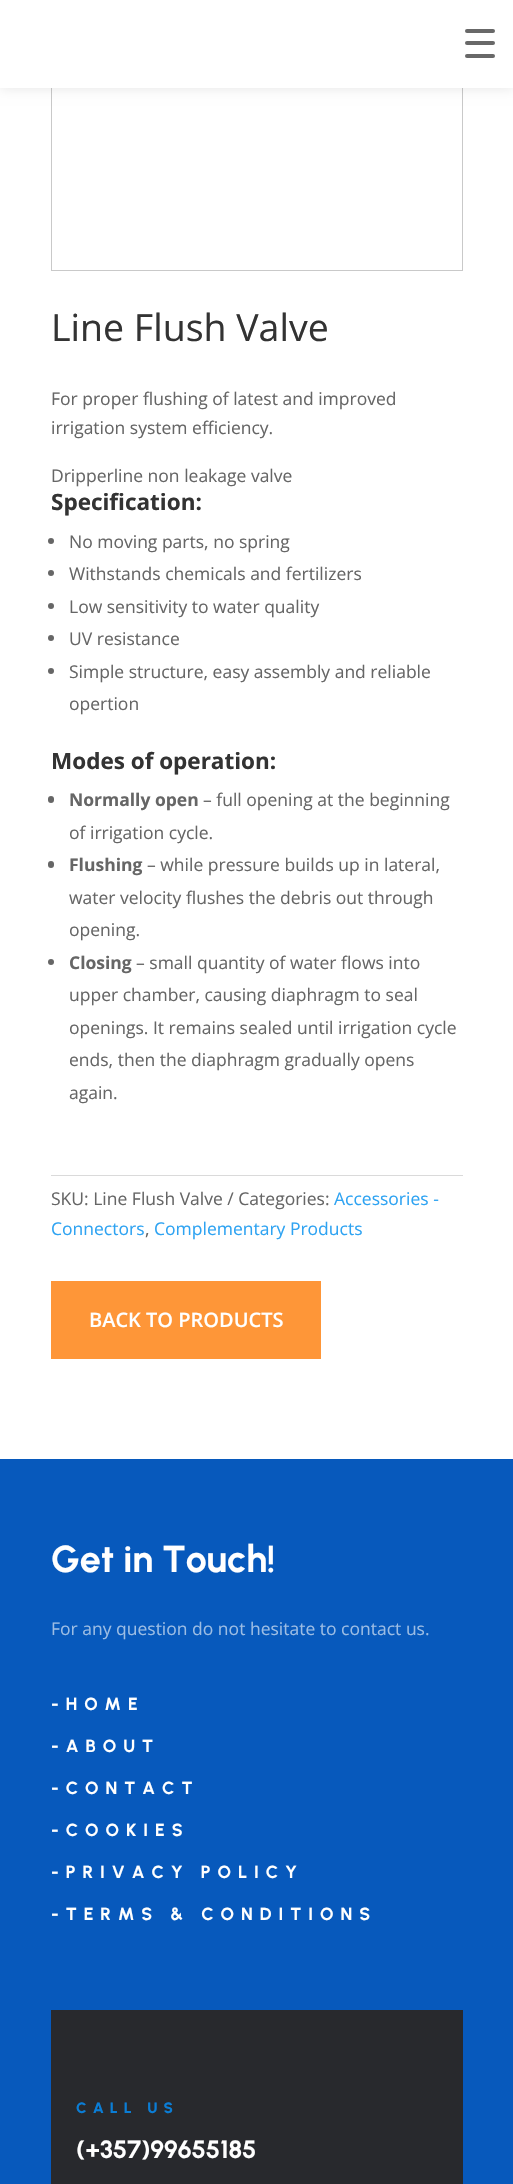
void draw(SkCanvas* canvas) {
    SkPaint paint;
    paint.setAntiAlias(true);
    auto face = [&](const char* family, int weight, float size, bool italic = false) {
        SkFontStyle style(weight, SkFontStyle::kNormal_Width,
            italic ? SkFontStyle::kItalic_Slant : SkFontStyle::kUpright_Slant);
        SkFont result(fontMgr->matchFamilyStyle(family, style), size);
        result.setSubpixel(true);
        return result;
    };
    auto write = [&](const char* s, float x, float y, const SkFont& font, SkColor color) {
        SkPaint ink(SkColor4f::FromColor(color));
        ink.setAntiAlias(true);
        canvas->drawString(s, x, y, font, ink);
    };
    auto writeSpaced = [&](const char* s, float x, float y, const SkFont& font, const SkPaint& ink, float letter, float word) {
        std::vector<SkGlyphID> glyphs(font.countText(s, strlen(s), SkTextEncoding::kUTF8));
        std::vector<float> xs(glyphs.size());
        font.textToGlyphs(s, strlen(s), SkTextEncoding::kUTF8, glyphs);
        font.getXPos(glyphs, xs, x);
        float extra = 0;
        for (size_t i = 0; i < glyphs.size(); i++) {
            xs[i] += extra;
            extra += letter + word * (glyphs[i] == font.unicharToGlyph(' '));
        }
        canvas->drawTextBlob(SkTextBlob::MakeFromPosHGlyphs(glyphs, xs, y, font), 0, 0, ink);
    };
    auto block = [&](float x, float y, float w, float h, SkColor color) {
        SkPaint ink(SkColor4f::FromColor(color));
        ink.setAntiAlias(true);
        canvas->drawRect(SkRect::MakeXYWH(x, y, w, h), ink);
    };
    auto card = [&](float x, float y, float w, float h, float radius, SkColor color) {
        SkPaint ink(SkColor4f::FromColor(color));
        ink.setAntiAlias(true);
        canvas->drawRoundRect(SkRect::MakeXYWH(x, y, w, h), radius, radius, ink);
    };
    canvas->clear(SK_ColorWHITE);
    paint.setStyle(SkPaint::kStroke_Style);
    paint.setStrokeWidth(1);
    paint.setColor(SkColorSetRGB(201, 201, 201));
    canvas->drawRect(SkRect::MakeXYWH(51.5f, -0.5f, 411, 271), paint);
    paint.setStyle(SkPaint::kFill_Style);
    paint.setColor(SkColorSetARGB(26, 0, 0, 0));
    paint.setMaskFilter(SkMaskFilter::MakeBlur(kNormal_SkBlurStyle, 6));
    canvas->drawRect(SkRect::MakeXYWH(0, 0, 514, 88), paint);
    paint.setMaskFilter(nullptr);
    block(0, 0, 513, 88, SK_ColorWHITE);
    card(465, 41, 30, 4, 2, SkColorSetRGB(104, 104, 104));
    card(465, 29, 30, 4, 2, SkColorSetRGB(104, 104, 104));
    card(465, 54, 30, 4, 2, SkColorSetRGB(104, 104, 104));
    auto kFont1 = face("Open Sans", 400, 37.5f);
    write("Line Flush Valve", 51, 341, kFont1, SkColorSetRGB(51, 51, 51));
    auto kFont2 = face("Open Sans", 400, 17.5f);
    write("For proper flushing of latest and improved", 51, 405, kFont2, SkColorSetRGB(102, 102, 102));
    write("irrigation system efficiency.", 51, 434, kFont2, SkColorSetRGB(102, 102, 102));
    write("Dripperline non leakage valve", 51, 482, kFont2, SkColorSetRGB(102, 102, 102));
    auto kFont3 = face("Open Sans", 700, 22.5f);
    write("Specification:", 51, 510, kFont3, SkColorSetRGB(51, 51, 51));
    paint.setColor(SkColorSetRGB(102, 102, 102));
    canvas->drawCircle(51, 541, 3, paint);
    write("No moving parts, no spring", 69, 548, kFont2, SkColorSetRGB(102, 102, 102));
    canvas->drawCircle(51, 573, 3, paint);
    write("Withstands chemicals and fertilizers", 69, 580, kFont2, SkColorSetRGB(102, 102, 102));
    canvas->drawCircle(51, 606, 3, paint);
    write("Low sensitivity to water quality", 69, 613, kFont2, SkColorSetRGB(102, 102, 102));
    canvas->drawCircle(51, 638, 3, paint);
    write("UV resistance", 69, 645, kFont2, SkColorSetRGB(102, 102, 102));
    canvas->drawCircle(51, 671, 3, paint);
    write("Simple structure, easy assembly and reliable", 69, 678, kFont2, SkColorSetRGB(102, 102, 102));
    write("opertion", 69, 710, kFont2, SkColorSetRGB(102, 102, 102));
    write("Modes of operation:", 51, 769, kFont3, SkColorSetRGB(51, 51, 51));
    card(48, 796, 6, 7, 3, SkColorSetRGB(102, 102, 102));
    auto kFont4 = face("Open Sans", 700, 17.5f);
    write("Normally open", 69, 806, kFont4, SkColorSetRGB(102, 102, 102));
    write("– full opening at the beginning", 203, 806, kFont2, SkColorSetRGB(102, 102, 102));
    write("of irrigation cycle.", 69, 839, kFont2, SkColorSetRGB(102, 102, 102));
    card(48, 861, 6, 7, 3, SkColorSetRGB(102, 102, 102));
    write("Flushing", 69, 871, kFont4, SkColorSetRGB(102, 102, 102));
    write("– while pressure builds up in lateral,", 147, 871, kFont2, SkColorSetRGB(102, 102, 102));
    write("water velocity flushes the debris out through", 69, 904, kFont2, SkColorSetRGB(102, 102, 102));
    write("opening.", 69, 936, kFont2, SkColorSetRGB(102, 102, 102));
    canvas->drawCircle(51, 962, 3, paint);
    write("Closing", 69, 969, kFont4, SkColorSetRGB(102, 102, 102));
    write("– small quantity of water flows into", 136, 969, kFont2, SkColorSetRGB(102, 102, 102));
    write("upper chamber, causing diaphragm to seal", 69, 1001, kFont2, SkColorSetRGB(102, 102, 102));
    write("openings. It remains sealed until irrigation cycle", 69, 1034, kFont2, SkColorSetRGB(102, 102, 102));
    write("ends, then the diaphragm gradually opens", 69, 1066, kFont2, SkColorSetRGB(102, 102, 102));
    write("again.", 69, 1099, kFont2, SkColorSetRGB(102, 102, 102));
    block(51, 1175, 412, 1, SkColorSetRGB(218, 218, 218));
    write("SKU: Line Flush Valve / Categories:", 51, 1205, kFont2, SkColorSetRGB(102, 102, 102));
    write("Accessories -", 334, 1205, kFont2, SkColorSetRGB(46, 163, 242));
    write("Connectors", 51, 1235, kFont2, SkColorSetRGB(46, 163, 242));
    write(",", 145, 1235, kFont2, SkColorSetRGB(102, 102, 102));
    write("Complementary Products", 154, 1235, kFont2, SkColorSetRGB(46, 163, 242));
    block(51, 1281, 270, 78, SkColorSetRGB(254, 150, 56));
    auto kFont5 = face("Open Sans", 600, 20);
    write("BACK TO PRODUCTS", 89, 1327, kFont5, SK_ColorWHITE);
    block(0, 1459, 513, 725, SkColorSetRGB(7, 89, 188));
    block(51, 2010, 412, 174, SkColorSetRGB(40, 41, 45));
    auto kFont6 = face("Urbanist", 700, 37.5f);
    write("Get in Touch!", 51, 1572, kFont6, SK_ColorWHITE);
    write("For any question do not hesitate to contact us.", 51, 1635, kFont2, SkColorSetRGB(156, 189, 228));
    auto kFont7 = face("Urbanist", 700, 17.5f);
    paint.setColor(SK_ColorWHITE);
    writeSpaced("-HOME", 51, 1710, kFont7, paint, 7, 0);
    writeSpaced("-ABOUT", 51, 1752, kFont7, paint, 7, 0);
    writeSpaced("-CONTACT", 51, 1794, kFont7, paint, 7, 0);
    writeSpaced("-COOKIES", 51, 1836, kFont7, paint, 7, 0);
    writeSpaced("-PRIVACY POLICY", 51, 1878, kFont7, paint, 7, 0);
    writeSpaced("-TERMS & CONDITIONS", 51, 1920, kFont7, paint, 7, 0);
    auto kFont8 = face("Urbanist", 800, 15);
    paint.setColor(SkColorSetRGB(10, 125, 214));
    writeSpaced("CALL US", 76, 2113, kFont8, paint, 6, 0);
    auto kFont9 = face("Urbanist", 700, 25);
    write("(+357)99655185", 76, 2158, kFont9, SK_ColorWHITE);
}
